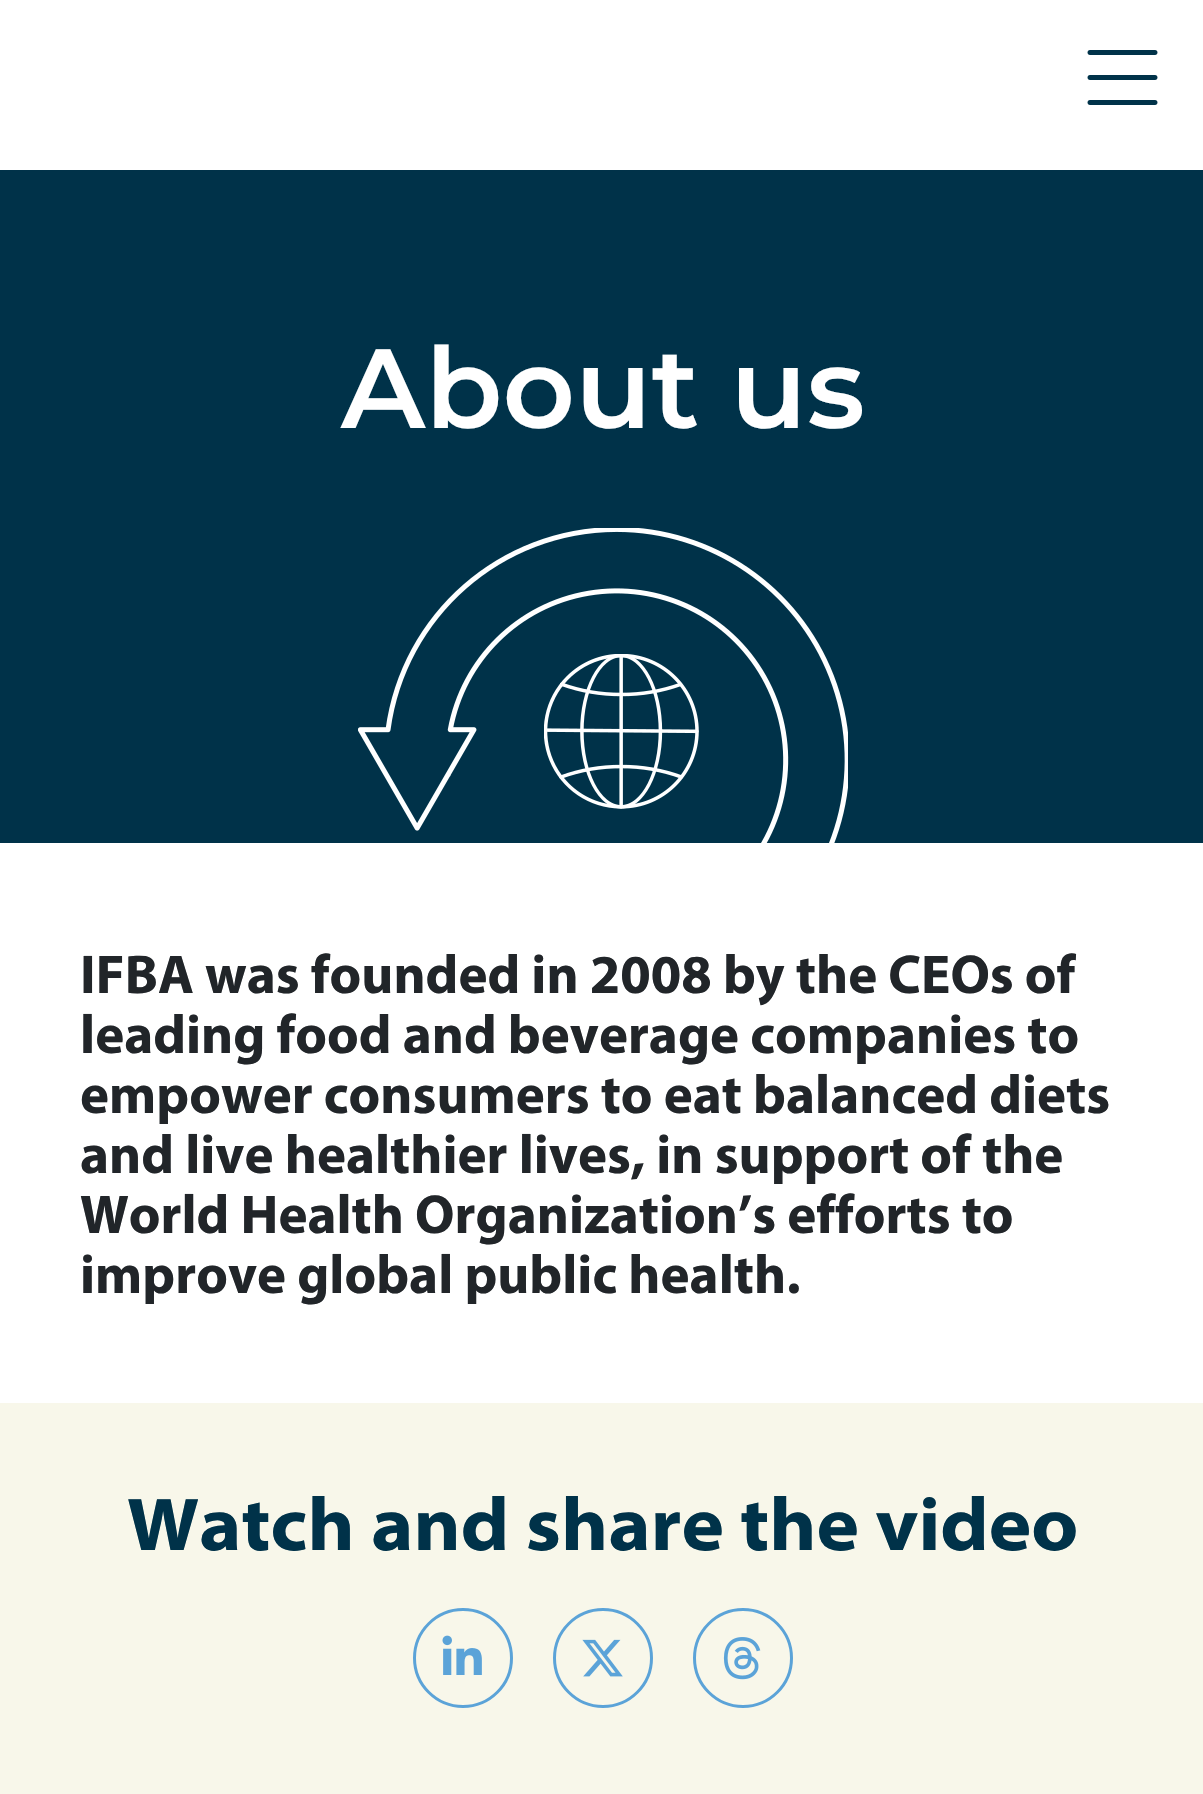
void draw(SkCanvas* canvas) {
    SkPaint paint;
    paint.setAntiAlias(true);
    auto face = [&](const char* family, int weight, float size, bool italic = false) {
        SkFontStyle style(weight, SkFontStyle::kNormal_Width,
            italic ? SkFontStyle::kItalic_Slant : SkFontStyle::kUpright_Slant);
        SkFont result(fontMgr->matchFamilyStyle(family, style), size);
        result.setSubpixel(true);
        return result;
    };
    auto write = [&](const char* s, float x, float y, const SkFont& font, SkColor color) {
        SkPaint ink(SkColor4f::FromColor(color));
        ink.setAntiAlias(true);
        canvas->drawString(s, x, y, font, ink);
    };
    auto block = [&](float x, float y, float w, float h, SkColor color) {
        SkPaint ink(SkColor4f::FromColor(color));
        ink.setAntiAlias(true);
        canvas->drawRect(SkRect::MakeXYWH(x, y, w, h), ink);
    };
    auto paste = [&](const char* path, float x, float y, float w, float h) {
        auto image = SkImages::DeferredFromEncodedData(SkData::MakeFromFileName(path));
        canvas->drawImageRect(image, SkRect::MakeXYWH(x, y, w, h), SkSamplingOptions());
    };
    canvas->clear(SK_ColorWHITE);
    paste("pic1.png", 1087, 50, 71, 55);
    block(0, 170, 1203, 673, SkColorSetRGB(0, 50, 73));
    auto kFont1 = face("Montserrat", 600, 112.5f);
    write("About us", 341, 428, kFont1, SK_ColorWHITE);
    paste("pic2.png", 358, 528, 490, 315);
    auto kFont2 = face("Myriad", 700, 55);
    write("IFBA was founded in 2008 by the CEOs of", 80, 993, kFont2, SkColorSetRGB(33, 37, 41));
    write("leading food and beverage companies to", 80, 1053, kFont2, SkColorSetRGB(33, 37, 41));
    write("empower consumers to eat balanced diets", 80, 1113, kFont2, SkColorSetRGB(33, 37, 41));
    write("and live healthier lives, in support of the", 80, 1173, kFont2, SkColorSetRGB(33, 37, 41));
    write("World Health Organization’s efforts to", 80, 1233, kFont2, SkColorSetRGB(33, 37, 41));
    write("improve global public health.", 80, 1293, kFont2, SkColorSetRGB(33, 37, 41));
    block(0, 1403, 1203, 391, SkColorSetRGB(248, 247, 234));
    auto kFont3 = face("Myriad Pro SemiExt", 700, 75.25f);
    write("Watch and share the video", 127, 1550, kFont3, SkColorSetRGB(0, 50, 73));
    paint.setStyle(SkPaint::kStroke_Style);
    paint.setStrokeWidth(3);
    paint.setColor(SkColorSetRGB(91, 163, 216));
    canvas->drawCircle(463, 1658, 48.5f, paint);
    paste("pic3.png", 442, 1635, 40, 40);
    canvas->drawCircle(603, 1658, 48.5f, paint);
    paste("pic4.png", 582, 1639, 41, 38);
    canvas->drawCircle(743, 1658, 48.5f, paint);
    paste("pic5.png", 723, 1637, 38, 43);
}
